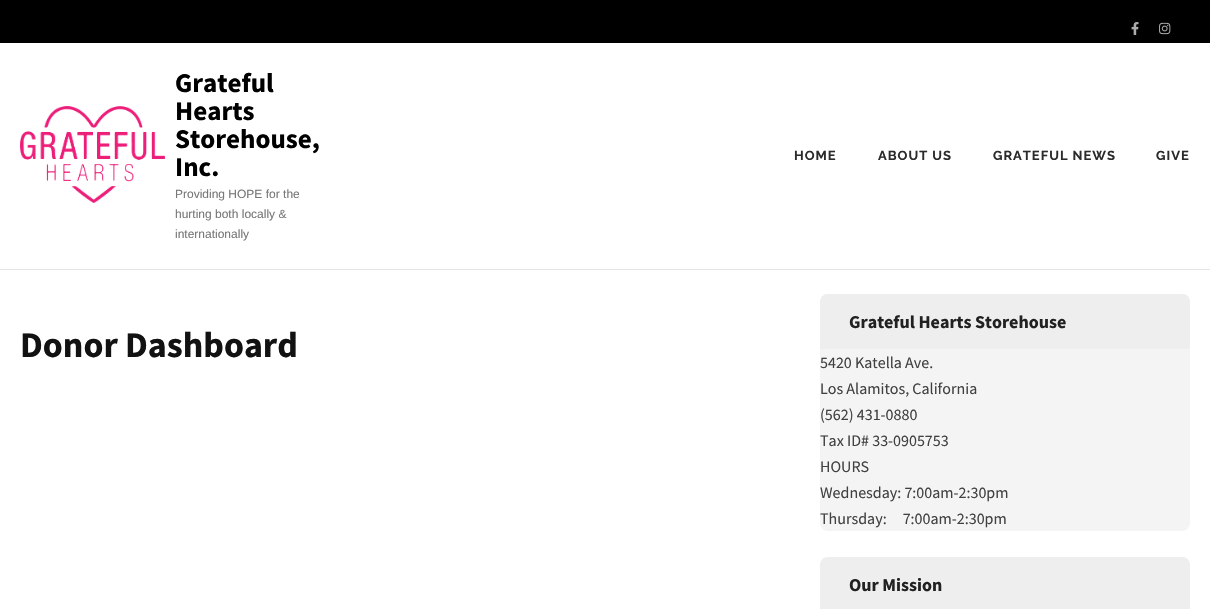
void draw(SkCanvas* canvas) {
    SkPaint paint;
    paint.setAntiAlias(true);
    auto face = [&](const char* family, int weight, float size, bool italic = false) {
        SkFontStyle style(weight, SkFontStyle::kNormal_Width,
            italic ? SkFontStyle::kItalic_Slant : SkFontStyle::kUpright_Slant);
        SkFont result(fontMgr->matchFamilyStyle(family, style), size);
        result.setSubpixel(true);
        return result;
    };
    auto write = [&](const char* s, float x, float y, const SkFont& font, SkColor color) {
        SkPaint ink(SkColor4f::FromColor(color));
        ink.setAntiAlias(true);
        canvas->drawString(s, x, y, font, ink);
    };
    auto writeSpaced = [&](const char* s, float x, float y, const SkFont& font, const SkPaint& ink, float letter, float word) {
        std::vector<SkGlyphID> glyphs(font.countText(s, strlen(s), SkTextEncoding::kUTF8));
        std::vector<float> xs(glyphs.size());
        font.textToGlyphs(s, strlen(s), SkTextEncoding::kUTF8, glyphs);
        font.getXPos(glyphs, xs, x);
        float extra = 0;
        for (size_t i = 0; i < glyphs.size(); i++) {
            xs[i] += extra;
            extra += letter + word * (glyphs[i] == font.unicharToGlyph(' '));
        }
        canvas->drawTextBlob(SkTextBlob::MakeFromPosHGlyphs(glyphs, xs, y, font), 0, 0, ink);
    };
    auto block = [&](float x, float y, float w, float h, SkColor color) {
        SkPaint ink(SkColor4f::FromColor(color));
        ink.setAntiAlias(true);
        canvas->drawRect(SkRect::MakeXYWH(x, y, w, h), ink);
    };
    auto card = [&](float x, float y, float w, float h, float radius, SkColor color) {
        SkPaint ink(SkColor4f::FromColor(color));
        ink.setAntiAlias(true);
        canvas->drawRoundRect(SkRect::MakeXYWH(x, y, w, h), radius, radius, ink);
    };
    auto paste = [&](const char* path, float x, float y, float w, float h) {
        auto image = SkImages::DeferredFromEncodedData(SkData::MakeFromFileName(path));
        canvas->drawImageRect(image, SkRect::MakeXYWH(x, y, w, h), SkSamplingOptions());
    };
    canvas->clear(SK_ColorWHITE);
    block(0, 269, 1210, 1, SkColorSetRGB(228, 228, 228));
    block(0, 0, 1210, 43, SK_ColorBLACK);
    paste("pic1.png", 1131, 22, 8, 13);
    paste("pic2.png", 1159, 22, 12, 13);
    paste("pic3.png", 20, 106, 145, 97);
    auto kFont1 = face("Source Sans Pro", 700, 27);
    write("Grateful", 175, 92, kFont1, SK_ColorBLACK);
    write("Hearts", 175, 120, kFont1, SK_ColorBLACK);
    write("Storehouse,", 175, 148, kFont1, SK_ColorBLACK);
    write("Inc.", 175, 176, kFont1, SK_ColorBLACK);
    auto kFont2 = face("Liberation Sans", 400, 12);
    write("Providing HOPE for the", 175, 198, kFont2, SkColorSetRGB(119, 119, 119));
    write("hurting both locally &", 175, 218, kFont2, SkColorSetRGB(119, 119, 119));
    write("internationally", 175, 238, kFont2, SkColorSetRGB(119, 119, 119));
    auto kFont3 = face("Raleway", 700, 13);
    paint.setColor(SkColorSetRGB(43, 43, 43));
    writeSpaced("HOME", 794, 160, kFont3, paint, 1, 0);
    writeSpaced("ABOUT US", 878, 160, kFont3, paint, 1, 0);
    writeSpaced("GRATEFUL NEWS", 993, 160, kFont3, paint, 1, 0);
    writeSpaced("GIVE", 1156, 160, kFont3, paint, 1, 0);
    auto kFont4 = face("Source Sans Pro", 700, 36);
    write("Donor Dashboard", 20, 357, kFont4, SkColorSetRGB(18, 18, 18));
    card(820, 294, 370, 237, 8, SkColorSetRGB(244, 244, 244));
    paint.setColor(SkColorSetRGB(238, 238, 238));
    canvas->drawPath(SkPathBuilder().moveTo(828, 294).lineTo(1182, 294).cubicTo(1186.5f, 294, 1190, 297.5f, 1190, 302).lineTo(1190, 349).lineTo(820, 349).lineTo(820, 302).cubicTo(820, 297.5f, 823.5f, 294, 828, 294).close().detach(), paint);
    auto kFont5 = face("Source Sans Pro", 700, 18);
    write("Grateful Hearts Storehouse", 849, 328, kFont5, SkColorSetRGB(33, 33, 33));
    auto kFont6 = face("Source Sans Pro", 400, 16);
    write("5420 Katella Ave.", 820, 368, kFont6, SkColorSetRGB(65, 65, 65));
    write("Los Alamitos, California", 820, 394, kFont6, SkColorSetRGB(65, 65, 65));
    write("(562) 431-0880", 820, 420, kFont6, SkColorSetRGB(65, 65, 65));
    write("Tax ID# 33-0905753", 820, 446, kFont6, SkColorSetRGB(65, 65, 65));
    write("HOURS", 820, 472, kFont6, SkColorSetRGB(65, 65, 65));
    write("Wednesday: 7:00am-2:30pm", 820, 498, kFont6, SkColorSetRGB(65, 65, 65));
    write("Thursday:     7:00am-2:30pm", 820, 524, kFont6, SkColorSetRGB(65, 65, 65));
    canvas->drawPath(SkPathBuilder().moveTo(828, 557).lineTo(1182, 557).cubicTo(1186.5f, 557, 1190, 560.5f, 1190, 565).lineTo(1190, 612).lineTo(820, 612).lineTo(820, 565).cubicTo(820, 560.5f, 823.5f, 557, 828, 557).close().detach(), paint);
    write("Our Mission", 849, 591, kFont5, SkColorSetRGB(33, 33, 33));
}
